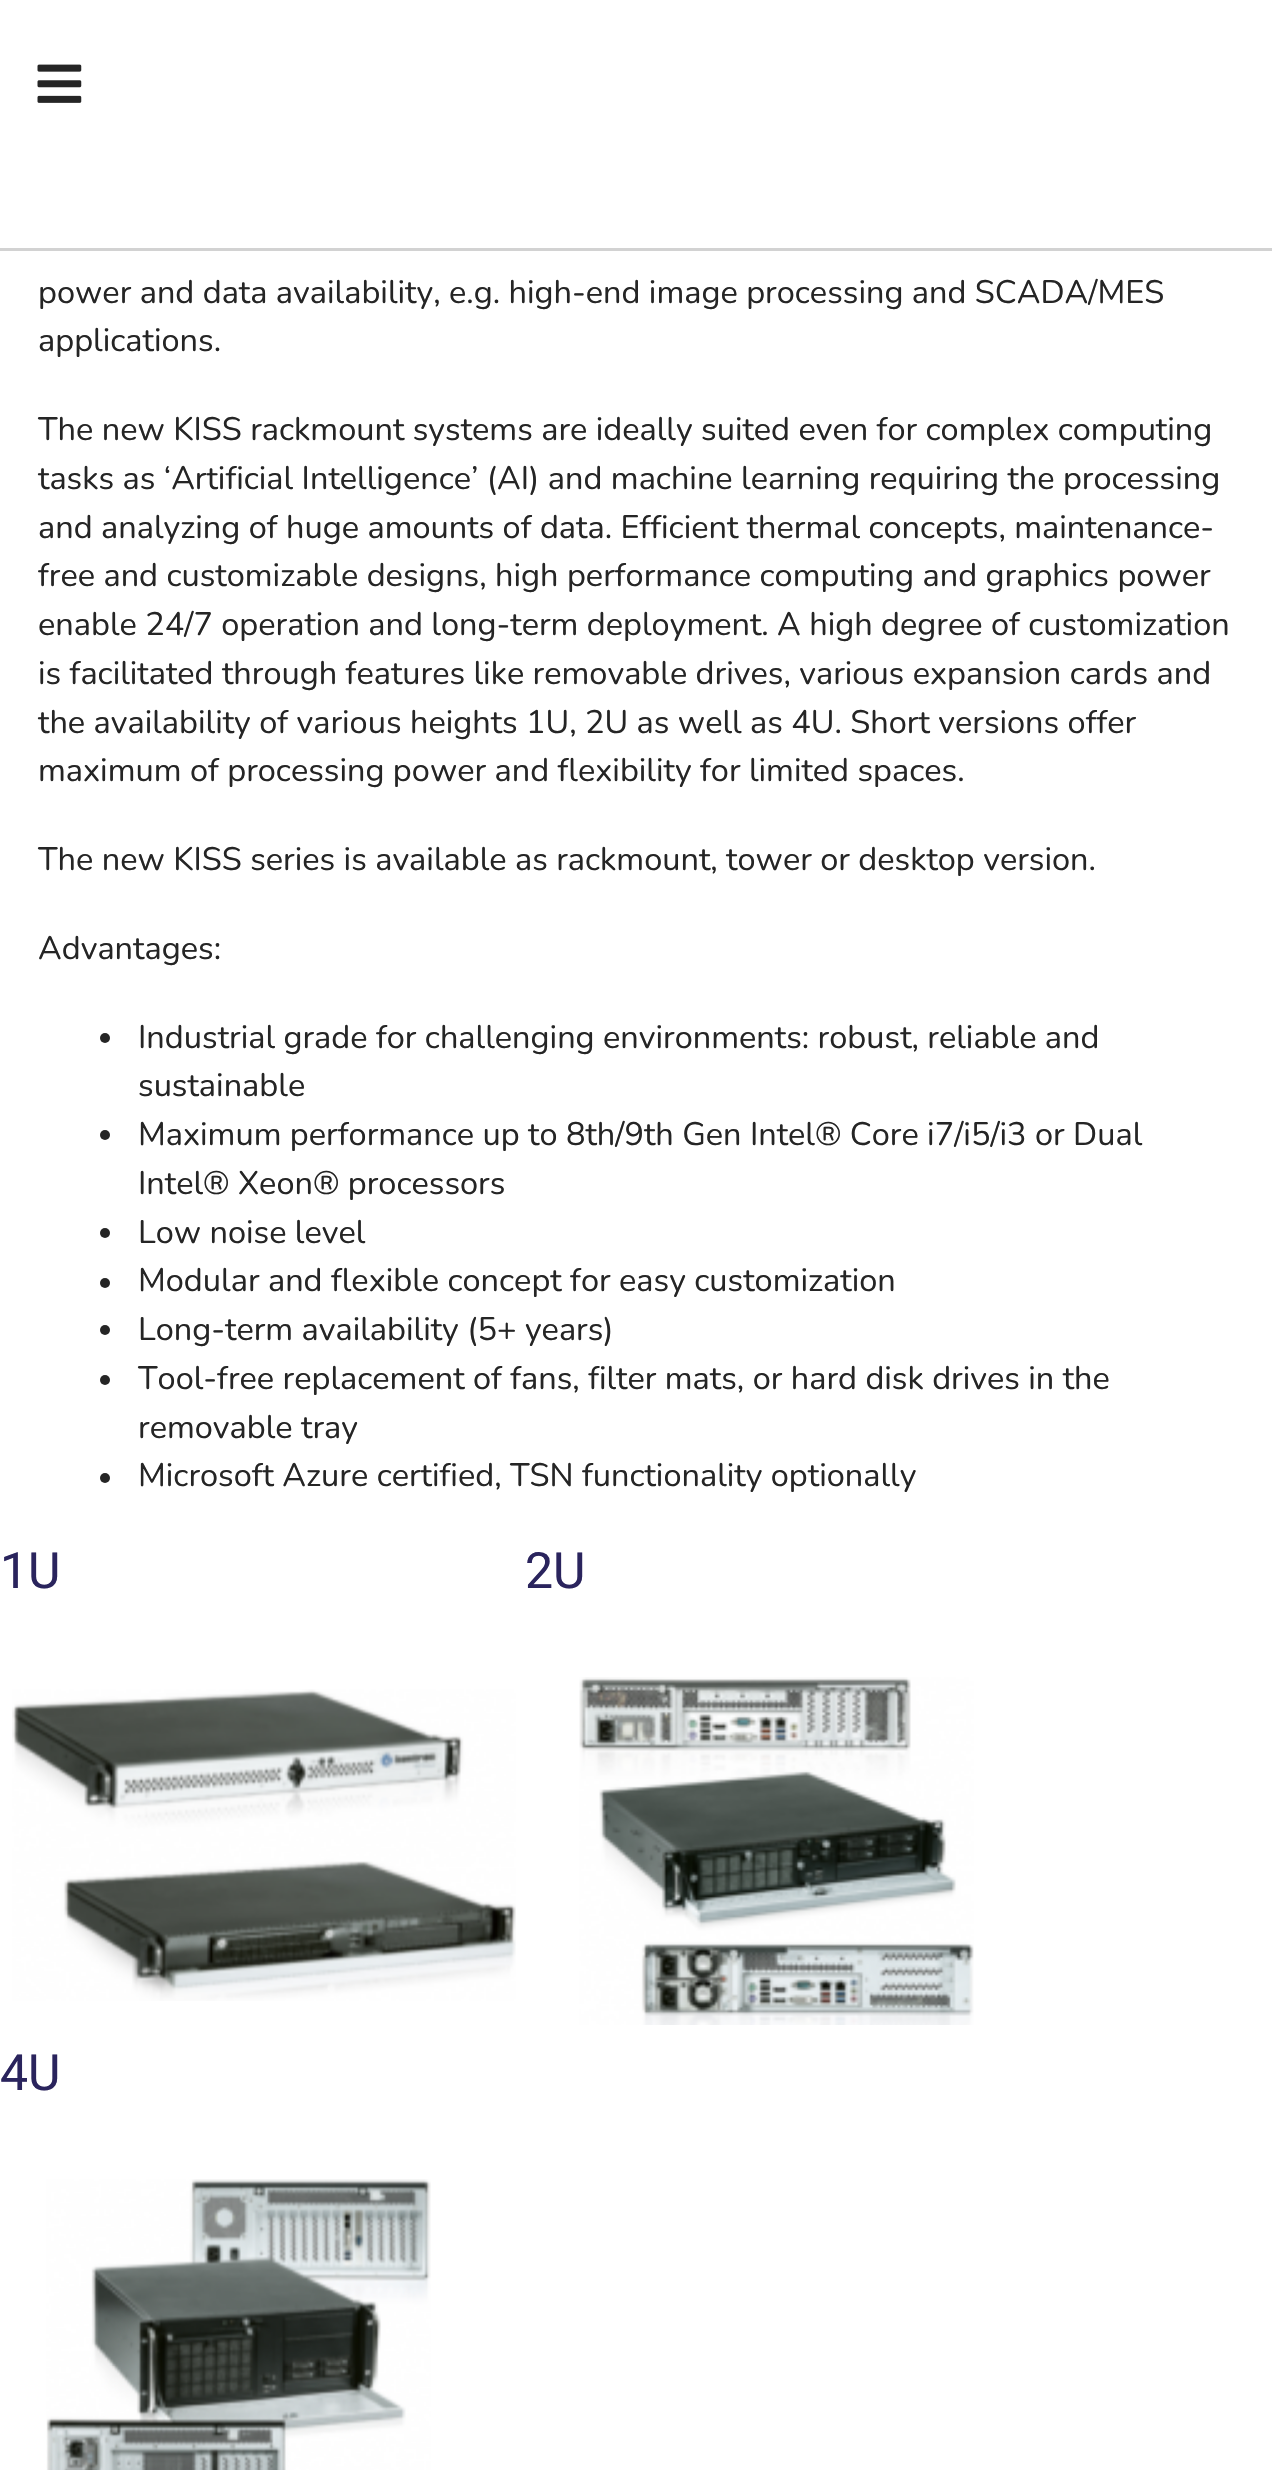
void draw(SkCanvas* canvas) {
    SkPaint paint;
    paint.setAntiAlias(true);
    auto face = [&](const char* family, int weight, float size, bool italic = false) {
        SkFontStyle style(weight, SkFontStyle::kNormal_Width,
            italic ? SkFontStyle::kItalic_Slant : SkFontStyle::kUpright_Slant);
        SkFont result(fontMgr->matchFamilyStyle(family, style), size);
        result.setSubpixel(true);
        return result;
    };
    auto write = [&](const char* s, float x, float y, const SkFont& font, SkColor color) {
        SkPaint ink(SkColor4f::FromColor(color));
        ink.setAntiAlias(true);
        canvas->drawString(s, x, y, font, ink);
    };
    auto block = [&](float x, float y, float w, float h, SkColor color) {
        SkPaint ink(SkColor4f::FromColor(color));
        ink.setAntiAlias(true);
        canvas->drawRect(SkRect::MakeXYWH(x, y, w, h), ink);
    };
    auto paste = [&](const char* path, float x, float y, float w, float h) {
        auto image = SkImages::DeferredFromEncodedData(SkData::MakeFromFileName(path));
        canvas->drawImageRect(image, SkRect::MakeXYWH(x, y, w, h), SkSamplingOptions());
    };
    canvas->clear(SK_ColorWHITE);
    block(0, 248, 1272, 3, SkColorSetARGB(51, 29, 29, 29));
    paste("pic1.png", 37, 64, 45, 39);
    auto kFont1 = face("Nunito", 400, 32.5f);
    write("power and data availability, e.g. high-end image processing and SCADA/MES", 38, 303, kFont1, SkColorSetRGB(37, 37, 37));
    write("applications.", 38, 351, kFont1, SkColorSetRGB(37, 37, 37));
    write("The new KISS rackmount systems are ideally suited even for complex computing", 38, 440, kFont1, SkColorSetRGB(37, 37, 37));
    write("tasks as ‘Artificial Intelligence’ (AI) and machine learning requiring the processing", 38, 489, kFont1, SkColorSetRGB(37, 37, 37));
    write("and analyzing of huge amounts of data. Efficient thermal concepts, maintenance-", 38, 538, kFont1, SkColorSetRGB(37, 37, 37));
    write("free and customizable designs, high performance computing and graphics power", 38, 586, kFont1, SkColorSetRGB(37, 37, 37));
    write("enable 24/7 operation and long-term deployment. A high degree of customization", 38, 635, kFont1, SkColorSetRGB(37, 37, 37));
    write("is facilitated through features like removable drives, various expansion cards and", 38, 684, kFont1, SkColorSetRGB(37, 37, 37));
    write("the availability of various heights 1U, 2U as well as 4U. Short versions offer", 38, 733, kFont1, SkColorSetRGB(37, 37, 37));
    write("maximum of processing power and flexibility for limited spaces.", 38, 781, kFont1, SkColorSetRGB(37, 37, 37));
    write("The new KISS series is available as rackmount, tower or desktop version.", 38, 870, kFont1, SkColorSetRGB(37, 37, 37));
    write("Advantages:", 38, 959, kFont1, SkColorSetRGB(37, 37, 37));
    paint.setColor(SkColorSetRGB(37, 37, 37));
    canvas->drawCircle(105, 1038, 5, paint);
    write("Industrial grade for challenging environments: robust, reliable and", 138, 1048, kFont1, SkColorSetRGB(37, 37, 37));
    write("sustainable", 138, 1096, kFont1, SkColorSetRGB(37, 37, 37));
    canvas->drawCircle(105, 1135, 5, paint);
    write("Maximum performance up to 8th/9th Gen Intel® Core i7/i5/i3 or Dual", 138, 1145, kFont1, SkColorSetRGB(37, 37, 37));
    write("Intel® Xeon® processors", 138, 1194, kFont1, SkColorSetRGB(37, 37, 37));
    canvas->drawCircle(105, 1233, 5, paint);
    write("Low noise level", 138, 1243, kFont1, SkColorSetRGB(37, 37, 37));
    canvas->drawCircle(105, 1283, 5, paint);
    write("Modular and flexible concept for easy customization", 138, 1291, kFont1, SkColorSetRGB(37, 37, 37));
    canvas->drawCircle(105, 1330, 5, paint);
    write("Long-term availability (5+ years)", 138, 1340, kFont1, SkColorSetRGB(37, 37, 37));
    canvas->drawCircle(105, 1380, 5, paint);
    write("Tool-free replacement of fans, filter mats, or hard disk drives in the", 138, 1389, kFont1, SkColorSetRGB(37, 37, 37));
    write("removable tray", 138, 1438, kFont1, SkColorSetRGB(37, 37, 37));
    canvas->drawCircle(105, 1478, 5, paint);
    write("Microsoft Azure certified, TSN functionality optionally", 138, 1486, kFont1, SkColorSetRGB(37, 37, 37));
    auto kFont2 = face("Heebo", 400, 50);
    write("1U", 0, 1588, kFont2, SkColorSetRGB(42, 36, 93));
    paste("pic2.png", 12, 1689, 504, 312);
    write("2U", 525, 1588, kFont2, SkColorSetRGB(42, 36, 93));
    paste("pic3.png", 579, 1677, 395, 348);
    write("4U", 0, 2090, kFont2, SkColorSetRGB(42, 36, 93));
    paste("pic4.png", 46, 2179, 385, 291);
}
